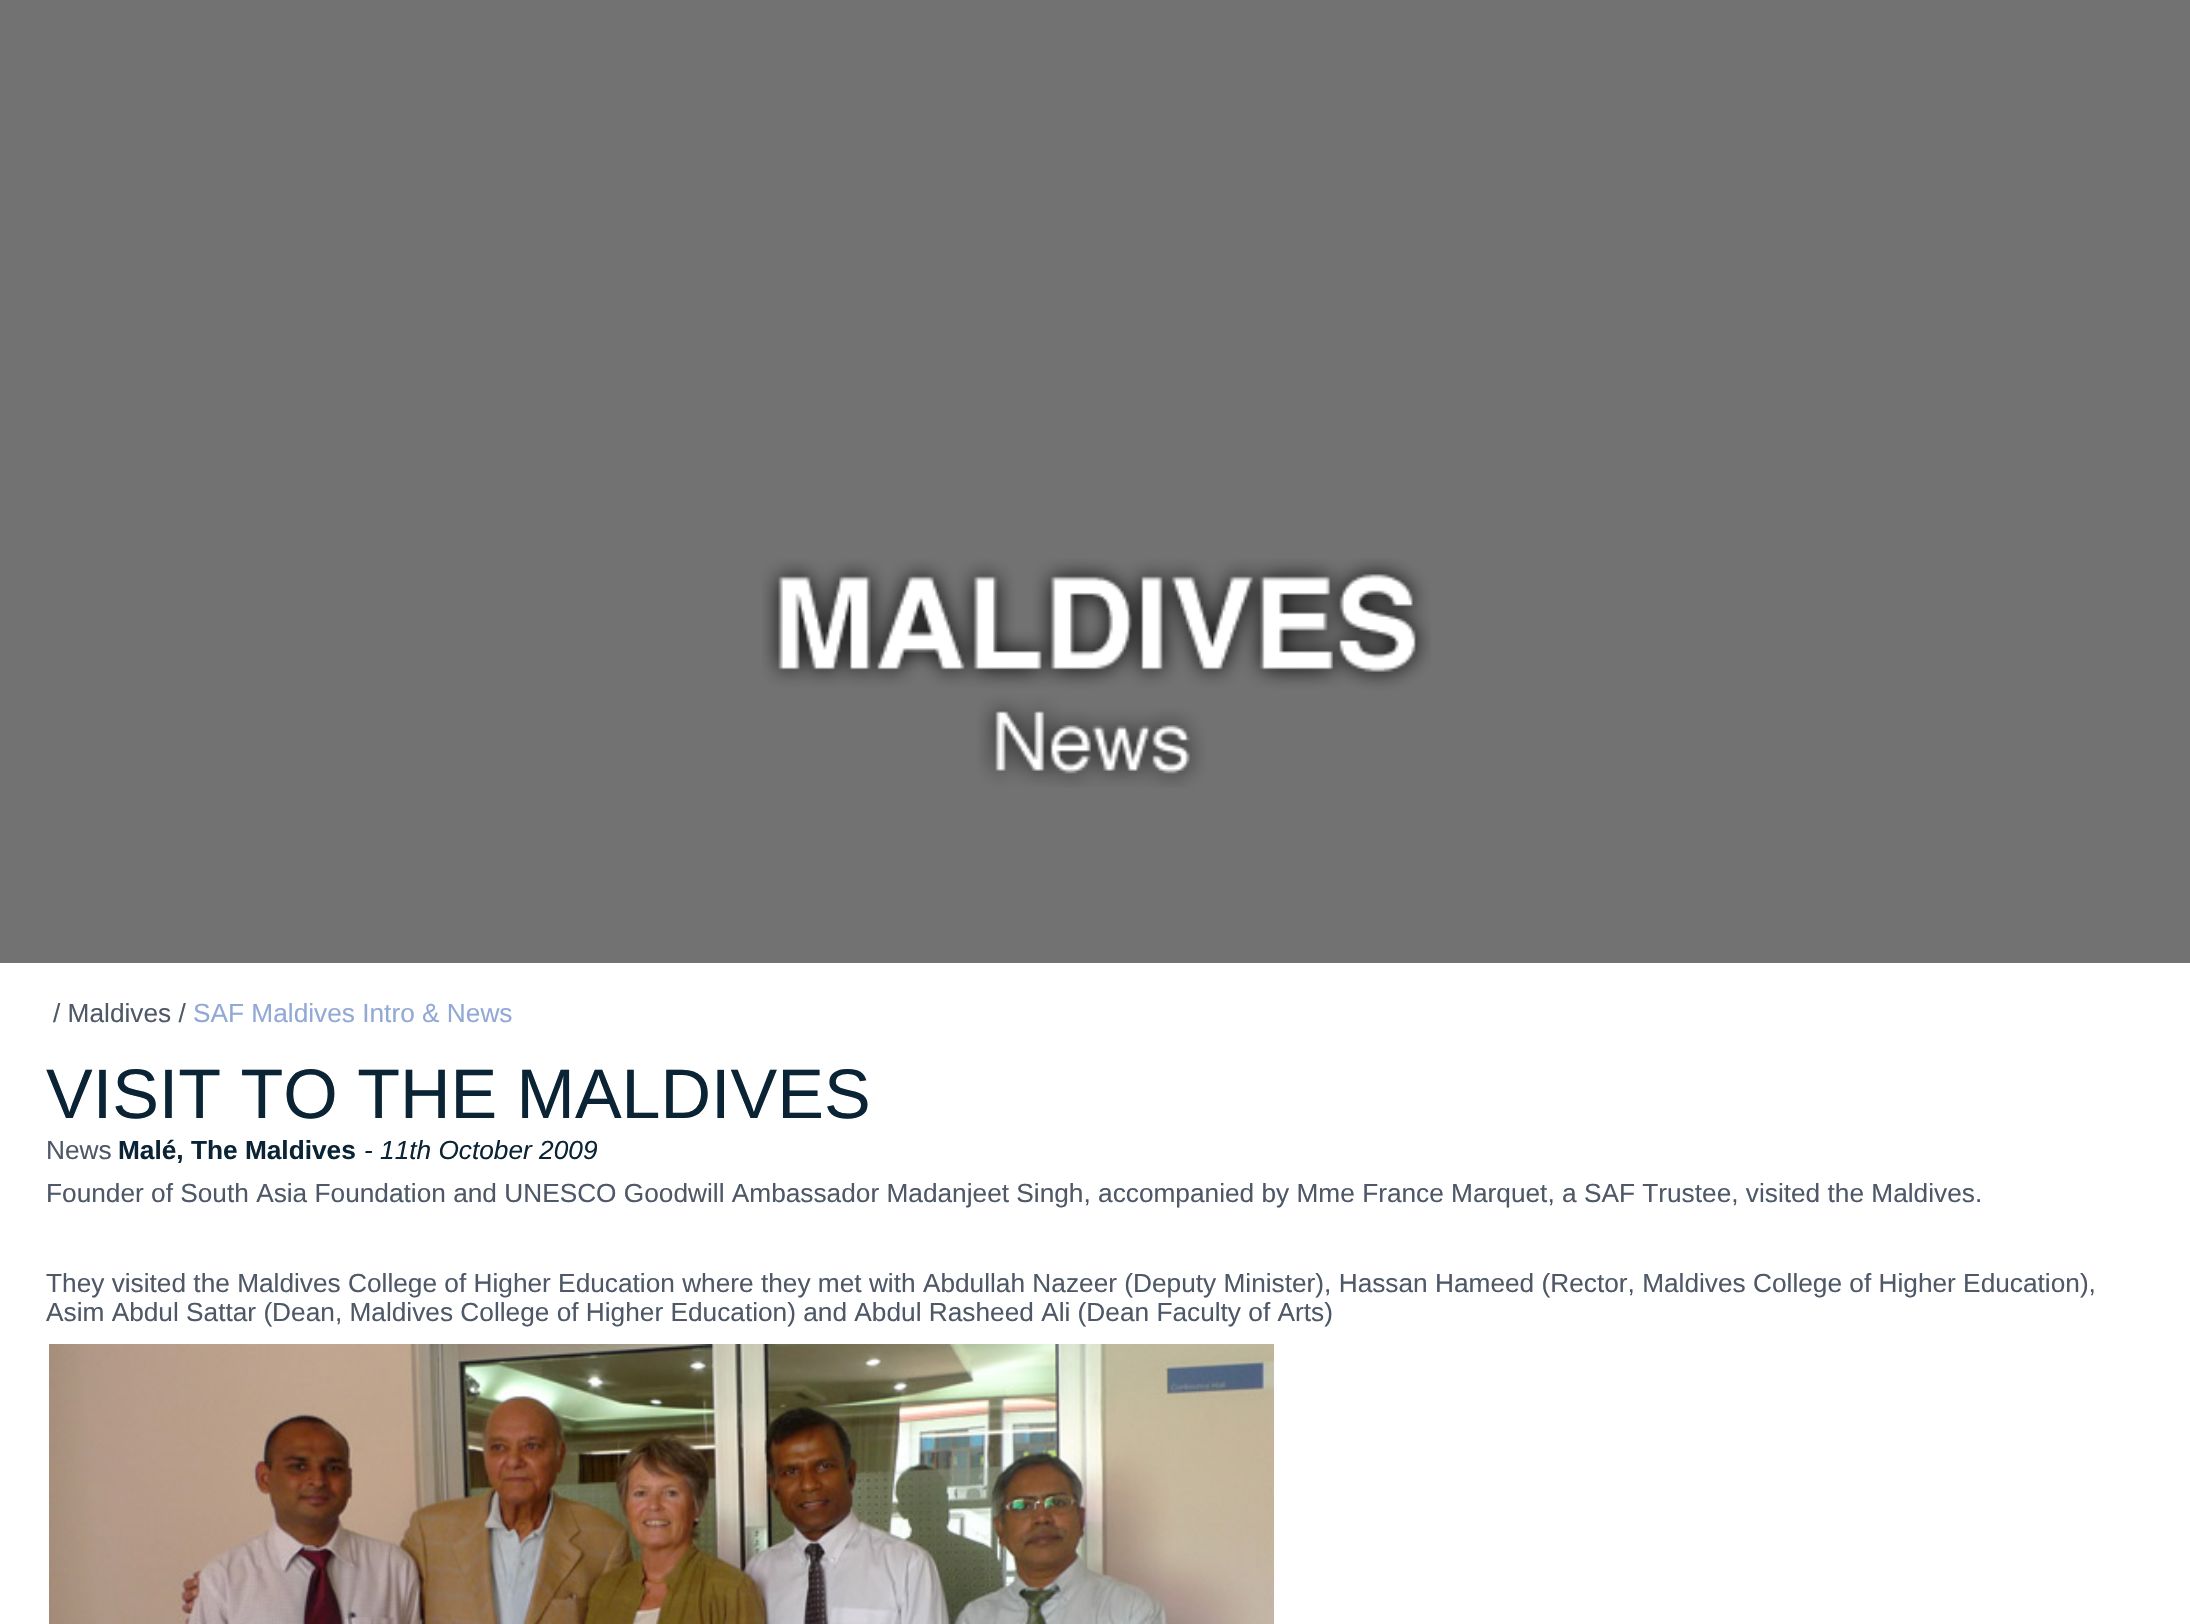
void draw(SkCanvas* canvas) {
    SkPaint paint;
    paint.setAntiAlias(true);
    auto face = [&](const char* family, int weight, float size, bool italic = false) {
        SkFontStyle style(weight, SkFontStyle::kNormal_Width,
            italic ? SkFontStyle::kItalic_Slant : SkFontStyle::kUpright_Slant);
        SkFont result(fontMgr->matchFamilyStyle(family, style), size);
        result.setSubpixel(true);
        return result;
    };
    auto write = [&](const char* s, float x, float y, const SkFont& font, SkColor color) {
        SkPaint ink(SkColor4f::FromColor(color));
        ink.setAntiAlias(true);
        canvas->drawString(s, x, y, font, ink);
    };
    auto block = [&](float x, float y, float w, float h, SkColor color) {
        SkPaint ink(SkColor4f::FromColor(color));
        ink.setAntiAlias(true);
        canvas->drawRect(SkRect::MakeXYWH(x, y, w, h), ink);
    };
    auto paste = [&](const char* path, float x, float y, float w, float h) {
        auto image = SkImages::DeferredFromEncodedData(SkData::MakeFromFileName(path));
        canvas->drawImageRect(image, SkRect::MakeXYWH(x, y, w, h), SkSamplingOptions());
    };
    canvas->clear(SK_ColorWHITE);
    block(0, 0, 2190, 963, SkColorSetRGB(114, 114, 114));
    paste("pic1.png", 762, 558, 669, 230);
    auto kFont1 = face("Liberation Sans", 400, 26.25f);
    write("/ Maldives /", 53, 1022, kFont1, SkColorSetRGB(78, 88, 103));
    write("SAF Maldives Intro & News", 193, 1022, kFont1, SkColorSetRGB(147, 169, 213));
    auto kFont2 = face("Liberation Sans", 400, 70);
    write("VISIT TO THE MALDIVES", 46, 1118, kFont2, SkColorSetRGB(11, 36, 53));
    write("News", 46, 1159, kFont1, SkColorSetRGB(78, 88, 103));
    auto kFont3 = face("Liberation Sans", 700, 26.25f);
    write("Malé, The Maldives", 118, 1159, kFont3, SkColorSetRGB(11, 36, 53));
    auto kFont4 = face("Liberation Sans", 400, 26.25f, true);
    write("- 11th October 2009", 364, 1159, kFont4, SkColorSetRGB(11, 36, 53));
    write("Founder of South Asia Foundation and UNESCO Goodwill Ambassador Madanjeet Singh, accompanied by Mme France Marquet, a SAF Trustee, visited the Maldives.", 46, 1202, kFont1, SkColorSetRGB(78, 88, 103));
    write("They visited the Maldives College of Higher Education where they met with Abdullah Nazeer (Deputy Minister), Hassan Hameed (Rector, Maldives College of Higher Education),", 46, 1292, kFont1, SkColorSetRGB(78, 88, 103));
    write("Asim Abdul Sattar (Dean, Maldives College of Higher Education) and Abdul Rasheed Ali (Dean Faculty of Arts)", 46, 1321, kFont1, SkColorSetRGB(78, 88, 103));
    paste("pic2.png", 49, 1344, 1225, 280);
}
